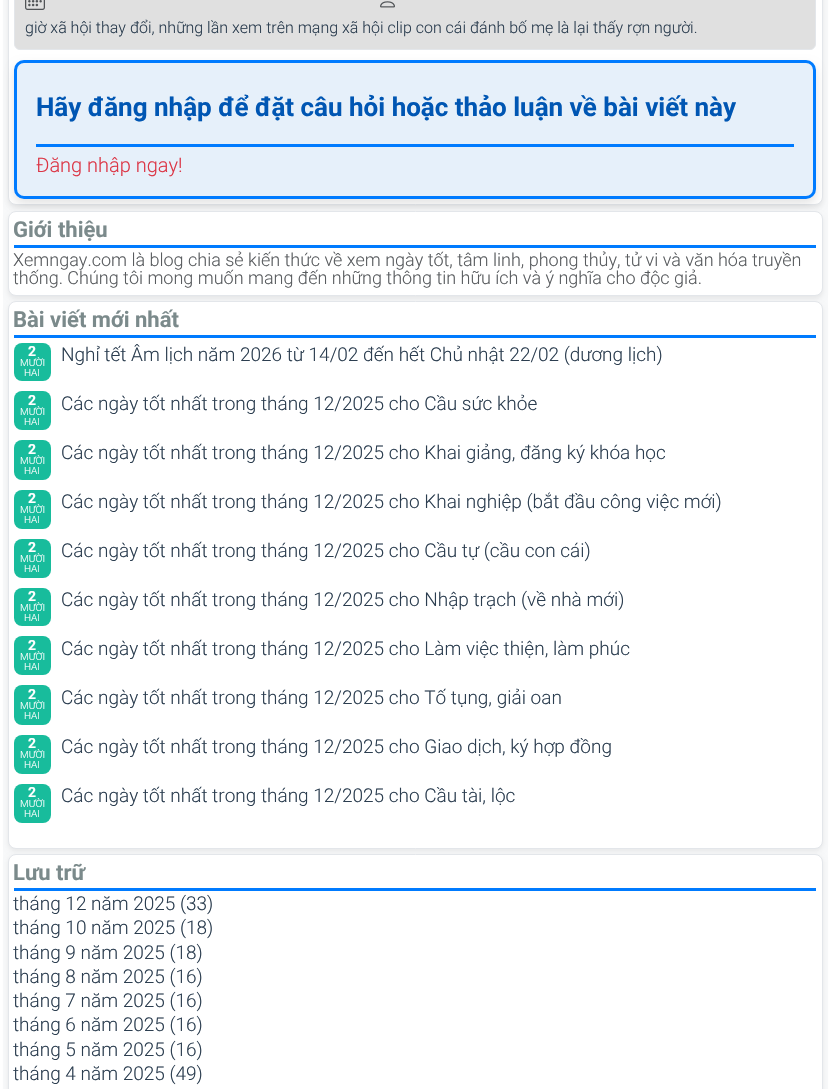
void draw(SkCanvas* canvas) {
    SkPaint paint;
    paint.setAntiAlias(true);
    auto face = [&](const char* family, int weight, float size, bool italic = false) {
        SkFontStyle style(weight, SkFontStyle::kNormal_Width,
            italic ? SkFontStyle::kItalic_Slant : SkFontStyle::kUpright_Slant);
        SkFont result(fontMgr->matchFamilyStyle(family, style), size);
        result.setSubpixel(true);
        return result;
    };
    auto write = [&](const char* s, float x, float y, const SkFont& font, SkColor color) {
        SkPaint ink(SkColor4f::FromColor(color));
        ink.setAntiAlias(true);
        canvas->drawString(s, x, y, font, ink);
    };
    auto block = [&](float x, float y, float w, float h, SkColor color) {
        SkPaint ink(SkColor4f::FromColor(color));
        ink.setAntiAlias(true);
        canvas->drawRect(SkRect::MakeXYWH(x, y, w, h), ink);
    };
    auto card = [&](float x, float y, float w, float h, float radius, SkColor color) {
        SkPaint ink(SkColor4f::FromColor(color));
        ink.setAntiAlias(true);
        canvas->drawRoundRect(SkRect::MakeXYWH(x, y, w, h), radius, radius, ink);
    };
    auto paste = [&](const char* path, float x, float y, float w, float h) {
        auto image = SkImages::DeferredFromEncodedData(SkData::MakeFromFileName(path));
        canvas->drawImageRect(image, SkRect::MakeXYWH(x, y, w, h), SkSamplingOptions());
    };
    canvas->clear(SK_ColorWHITE);
    block(3, 0, 825, 1089, SkColorSetRGB(248, 249, 250));
    paint.setColor(SkColorSetARGB(18, 0, 0, 0));
    paint.setMaskFilter(SkMaskFilter::MakeBlur(kNormal_SkBlurStyle, 2.5f));
    canvas->drawRoundRect(SkRect::MakeXYWH(8, -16, 815, 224), 8, 8, paint);
    paint.setMaskFilter(nullptr);
    paint.setColor(SK_ColorWHITE);
    canvas->drawRoundRect(SkRect::MakeXYWH(8.5f, -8.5f, 814, 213), 7.5f, 7.5f, paint);
    paint.setStyle(SkPaint::kStroke_Style);
    paint.setStrokeWidth(1);
    paint.setColor(SkColorSetRGB(227, 230, 234));
    canvas->drawRoundRect(SkRect::MakeXYWH(8.5f, -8.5f, 814, 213), 7.5f, 7.5f, paint);
    paint.setStyle(SkPaint::kFill_Style);
    paint.setColor(SkColorSetRGB(224, 224, 224));
    canvas->drawRoundRect(SkRect::MakeXYWH(14.5f, -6.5f, 801, 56), 5.5f, 5.5f, paint);
    paint.setStyle(SkPaint::kStroke_Style);
    paint.setColor(SkColorSetRGB(227, 230, 234));
    canvas->drawRoundRect(SkRect::MakeXYWH(14.5f, -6.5f, 801, 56), 5.5f, 5.5f, paint);
    paste("pic1.png", 25, 0, 20, 10);
    paste("pic2.png", 380, 1, 15, 7);
    auto kFont1 = face("Roboto", 300, 16);
    write("giờ xã hội thay đổi, những lần xem trên mạng xã hội clip con cái đánh bố mẹ là lại thấy rợn người.", 25, 33, kFont1, SkColorSetRGB(44, 62, 80));
    paint.setStyle(SkPaint::kFill_Style);
    paint.setColor(SkColorSetARGB(26, 0, 0, 0));
    paint.setMaskFilter(SkMaskFilter::MakeBlur(kNormal_SkBlurStyle, 5));
    canvas->drawRoundRect(SkRect::MakeXYWH(14, 65, 802, 139), 10, 10, paint);
    paint.setMaskFilter(nullptr);
    paint.setColor(SkColorSetRGB(230, 240, 250));
    canvas->drawRoundRect(SkRect::MakeXYWH(15.5f, 61.5f, 799, 136), 8.5f, 8.5f, paint);
    paint.setStyle(SkPaint::kStroke_Style);
    paint.setStrokeWidth(3);
    paint.setColor(SkColorSetRGB(0, 123, 255));
    canvas->drawRoundRect(SkRect::MakeXYWH(15.5f, 61.5f, 799, 136), 8.5f, 8.5f, paint);
    block(36, 144, 758, 3, SkColorSetRGB(0, 123, 255));
    auto kFont2 = face("Roboto", 700, 26);
    write("Hãy đăng nhập để đặt câu hỏi hoặc thảo luận về bài viết này", 36, 116, kFont2, SkColorSetRGB(0, 86, 179));
    auto kFont3 = face("Roboto", 300, 20);
    write("Đăng nhập ngay!", 36, 172, kFont3, SkColorSetRGB(220, 53, 69));
    paint.setStyle(SkPaint::kFill_Style);
    paint.setColor(SkColorSetARGB(18, 0, 0, 0));
    paint.setMaskFilter(SkMaskFilter::MakeBlur(kNormal_SkBlurStyle, 2.5f));
    canvas->drawRoundRect(SkRect::MakeXYWH(8, 214, 815, 85), 8, 8, paint);
    paint.setMaskFilter(nullptr);
    paint.setColor(SK_ColorWHITE);
    canvas->drawRoundRect(SkRect::MakeXYWH(8.5f, 211.5f, 814, 84), 7.5f, 7.5f, paint);
    paint.setStyle(SkPaint::kStroke_Style);
    paint.setStrokeWidth(1);
    paint.setColor(SkColorSetRGB(227, 230, 234));
    canvas->drawRoundRect(SkRect::MakeXYWH(8.5f, 211.5f, 814, 84), 7.5f, 7.5f, paint);
    block(14, 245, 802, 3, SkColorSetRGB(0, 123, 255));
    auto kFont4 = face("Roboto", 700, 22);
    write("Giới thiệu", 13, 237, kFont4, SkColorSetRGB(123, 138, 139));
    auto kFont5 = face("Roboto", 300, 18);
    write("Xemngay.com là blog chia sẻ kiến thức về xem ngày tốt, tâm linh, phong thủy, tử vi và văn hóa truyền", 13, 266, kFont5, SkColorSetRGB(89, 92, 95));
    write("thống. Chúng tôi mong muốn mang đến những thông tin hữu ích và ý nghĩa cho độc giả.", 13, 284, kFont5, SkColorSetRGB(89, 92, 95));
    paint.setStyle(SkPaint::kFill_Style);
    paint.setColor(SkColorSetARGB(18, 0, 0, 0));
    paint.setMaskFilter(SkMaskFilter::MakeBlur(kNormal_SkBlurStyle, 2.5f));
    canvas->drawRoundRect(SkRect::MakeXYWH(8, 304, 815, 547), 8, 8, paint);
    paint.setMaskFilter(nullptr);
    paint.setColor(SK_ColorWHITE);
    canvas->drawRoundRect(SkRect::MakeXYWH(8.5f, 301.5f, 814, 547), 7.5f, 7.5f, paint);
    paint.setStyle(SkPaint::kStroke_Style);
    paint.setColor(SkColorSetRGB(227, 230, 234));
    canvas->drawRoundRect(SkRect::MakeXYWH(8.5f, 301.5f, 814, 547), 7.5f, 7.5f, paint);
    block(14, 335, 802, 3, SkColorSetRGB(0, 123, 255));
    write("Bài viết mới nhất", 13, 327, kFont4, SkColorSetRGB(123, 138, 139));
    card(14, 343, 37, 38, 8, SkColorSetRGB(24, 188, 156));
    auto kFont6 = face("Roboto", 700, 14);
    write("2", 28, 356, kFont6, SK_ColorWHITE);
    auto kFont7 = face("Roboto", 300, 10);
    write("MƯỜI", 20, 366, kFont7, SK_ColorWHITE);
    write("HAI", 24, 376, kFont7, SK_ColorWHITE);
    auto kFont8 = face("Roboto", 300, 19);
    write("Nghỉ tết Âm lịch năm 2026 từ 14/02 đến hết Chủ nhật 22/02 (dương lịch)", 61, 361, kFont8, SkColorSetRGB(44, 62, 80));
    card(14, 391, 37, 39, 8, SkColorSetRGB(24, 188, 156));
    write("2", 28, 405, kFont6, SK_ColorWHITE);
    write("MƯỜI", 20, 415, kFont7, SK_ColorWHITE);
    write("HAI", 24, 425, kFont7, SK_ColorWHITE);
    write("Các ngày tốt nhất trong tháng 12/2025 cho Cầu sức khỏe", 61, 410, kFont8, SkColorSetRGB(44, 62, 80));
    card(14, 440, 37, 40, 8, SkColorSetRGB(24, 188, 156));
    write("2", 28, 454, kFont6, SK_ColorWHITE);
    write("MƯỜI", 20, 464, kFont7, SK_ColorWHITE);
    write("HAI", 24, 474, kFont7, SK_ColorWHITE);
    write("Các ngày tốt nhất trong tháng 12/2025 cho Khai giảng, đăng ký khóa học", 61, 459, kFont8, SkColorSetRGB(44, 62, 80));
    card(14, 490, 37, 39, 8, SkColorSetRGB(24, 188, 156));
    write("2", 28, 503, kFont6, SK_ColorWHITE);
    write("MƯỜI", 20, 513, kFont7, SK_ColorWHITE);
    write("HAI", 24, 523, kFont7, SK_ColorWHITE);
    write("Các ngày tốt nhất trong tháng 12/2025 cho Khai nghiệp (bắt đầu công việc mới)", 61, 508, kFont8, SkColorSetRGB(44, 62, 80));
    card(14, 539, 37, 39, 8, SkColorSetRGB(24, 188, 156));
    write("2", 28, 552, kFont6, SK_ColorWHITE);
    write("MƯỜI", 20, 562, kFont7, SK_ColorWHITE);
    write("HAI", 24, 572, kFont7, SK_ColorWHITE);
    write("Các ngày tốt nhất trong tháng 12/2025 cho Cầu tự (cầu con cái)", 61, 557, kFont8, SkColorSetRGB(44, 62, 80));
    card(14, 588, 37, 38, 8, SkColorSetRGB(24, 188, 156));
    write("2", 28, 601, kFont6, SK_ColorWHITE);
    write("MƯỜI", 20, 611, kFont7, SK_ColorWHITE);
    write("HAI", 24, 621, kFont7, SK_ColorWHITE);
    write("Các ngày tốt nhất trong tháng 12/2025 cho Nhập trạch (về nhà mới)", 61, 606, kFont8, SkColorSetRGB(44, 62, 80));
    card(14, 636, 37, 39, 8, SkColorSetRGB(24, 188, 156));
    write("2", 28, 650, kFont6, SK_ColorWHITE);
    write("MƯỜI", 20, 660, kFont7, SK_ColorWHITE);
    write("HAI", 24, 670, kFont7, SK_ColorWHITE);
    write("Các ngày tốt nhất trong tháng 12/2025 cho Làm việc thiện, làm phúc", 61, 655, kFont8, SkColorSetRGB(44, 62, 80));
    card(14, 685, 37, 40, 8, SkColorSetRGB(24, 188, 156));
    write("2", 28, 699, kFont6, SK_ColorWHITE);
    write("MƯỜI", 20, 709, kFont7, SK_ColorWHITE);
    write("HAI", 24, 719, kFont7, SK_ColorWHITE);
    write("Các ngày tốt nhất trong tháng 12/2025 cho Tố tụng, giải oan", 61, 704, kFont8, SkColorSetRGB(44, 62, 80));
    card(14, 735, 37, 39, 8, SkColorSetRGB(24, 188, 156));
    write("2", 28, 748, kFont6, SK_ColorWHITE);
    write("MƯỜI", 20, 758, kFont7, SK_ColorWHITE);
    write("HAI", 24, 768, kFont7, SK_ColorWHITE);
    write("Các ngày tốt nhất trong tháng 12/2025 cho Giao dịch, ký hợp đồng", 61, 753, kFont8, SkColorSetRGB(44, 62, 80));
    card(14, 784, 37, 39, 8, SkColorSetRGB(24, 188, 156));
    write("2", 28, 797, kFont6, SK_ColorWHITE);
    write("MƯỜI", 20, 807, kFont7, SK_ColorWHITE);
    write("HAI", 24, 817, kFont7, SK_ColorWHITE);
    write("Các ngày tốt nhất trong tháng 12/2025 cho Cầu tài, lộc", 61, 802, kFont8, SkColorSetRGB(44, 62, 80));
    paint.setStyle(SkPaint::kFill_Style);
    paint.setColor(SkColorSetARGB(18, 0, 0, 0));
    paint.setMaskFilter(SkMaskFilter::MakeBlur(kNormal_SkBlurStyle, 2.5f));
    canvas->drawRoundRect(SkRect::MakeXYWH(8, 856, 815, 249), 8, 8, paint);
    paint.setMaskFilter(nullptr);
    paint.setColor(SK_ColorWHITE);
    canvas->drawRoundRect(SkRect::MakeXYWH(8.5f, 854.5f, 814, 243), 7.5f, 7.5f, paint);
    paint.setStyle(SkPaint::kStroke_Style);
    paint.setColor(SkColorSetRGB(227, 230, 234));
    canvas->drawRoundRect(SkRect::MakeXYWH(8.5f, 854.5f, 814, 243), 7.5f, 7.5f, paint);
    block(14, 888, 802, 3, SkColorSetRGB(0, 123, 255));
    write("Lưu trữ", 13, 880, kFont4, SkColorSetRGB(123, 138, 139));
    write("tháng 12 năm 2025 (33)", 13, 910, kFont8, SkColorSetRGB(44, 62, 80));
    write("tháng 10 năm 2025 (18)", 13, 934, kFont8, SkColorSetRGB(44, 62, 80));
    write("tháng 9 năm 2025 (18)", 13, 959, kFont8, SkColorSetRGB(44, 62, 80));
    write("tháng 8 năm 2025 (16)", 13, 983, kFont8, SkColorSetRGB(44, 62, 80));
    write("tháng 7 năm 2025 (16)", 13, 1007, kFont8, SkColorSetRGB(44, 62, 80));
    write("tháng 6 năm 2025 (16)", 13, 1031, kFont8, SkColorSetRGB(44, 62, 80));
    write("tháng 5 năm 2025 (16)", 13, 1056, kFont8, SkColorSetRGB(44, 62, 80));
    write("tháng 4 năm 2025 (49)", 13, 1080, kFont8, SkColorSetRGB(44, 62, 80));
}
